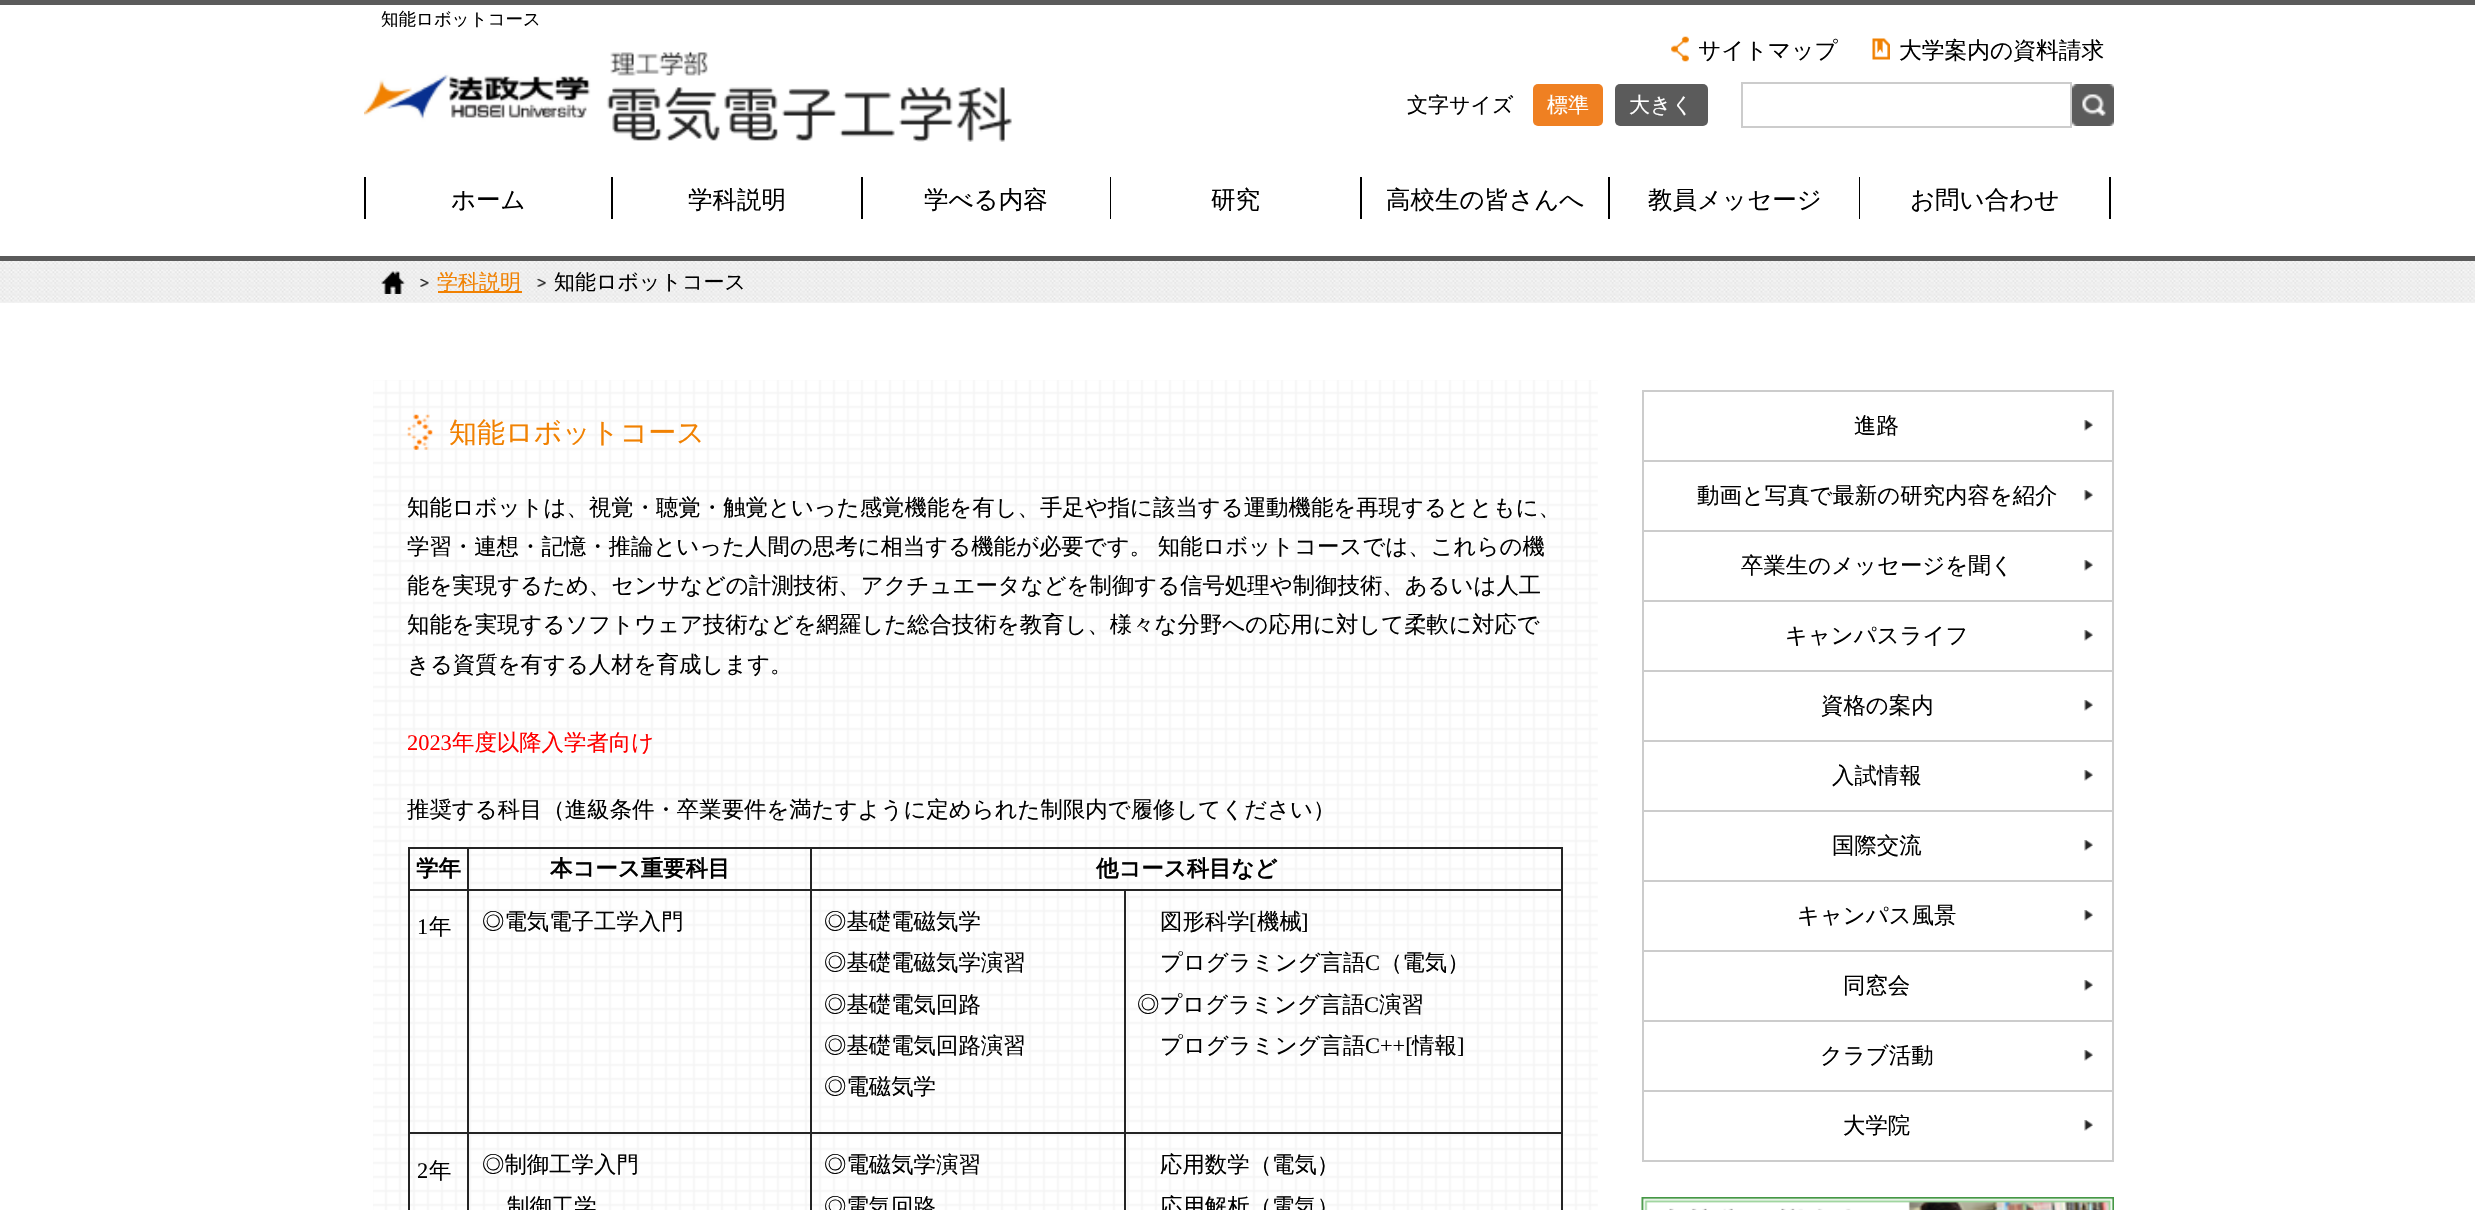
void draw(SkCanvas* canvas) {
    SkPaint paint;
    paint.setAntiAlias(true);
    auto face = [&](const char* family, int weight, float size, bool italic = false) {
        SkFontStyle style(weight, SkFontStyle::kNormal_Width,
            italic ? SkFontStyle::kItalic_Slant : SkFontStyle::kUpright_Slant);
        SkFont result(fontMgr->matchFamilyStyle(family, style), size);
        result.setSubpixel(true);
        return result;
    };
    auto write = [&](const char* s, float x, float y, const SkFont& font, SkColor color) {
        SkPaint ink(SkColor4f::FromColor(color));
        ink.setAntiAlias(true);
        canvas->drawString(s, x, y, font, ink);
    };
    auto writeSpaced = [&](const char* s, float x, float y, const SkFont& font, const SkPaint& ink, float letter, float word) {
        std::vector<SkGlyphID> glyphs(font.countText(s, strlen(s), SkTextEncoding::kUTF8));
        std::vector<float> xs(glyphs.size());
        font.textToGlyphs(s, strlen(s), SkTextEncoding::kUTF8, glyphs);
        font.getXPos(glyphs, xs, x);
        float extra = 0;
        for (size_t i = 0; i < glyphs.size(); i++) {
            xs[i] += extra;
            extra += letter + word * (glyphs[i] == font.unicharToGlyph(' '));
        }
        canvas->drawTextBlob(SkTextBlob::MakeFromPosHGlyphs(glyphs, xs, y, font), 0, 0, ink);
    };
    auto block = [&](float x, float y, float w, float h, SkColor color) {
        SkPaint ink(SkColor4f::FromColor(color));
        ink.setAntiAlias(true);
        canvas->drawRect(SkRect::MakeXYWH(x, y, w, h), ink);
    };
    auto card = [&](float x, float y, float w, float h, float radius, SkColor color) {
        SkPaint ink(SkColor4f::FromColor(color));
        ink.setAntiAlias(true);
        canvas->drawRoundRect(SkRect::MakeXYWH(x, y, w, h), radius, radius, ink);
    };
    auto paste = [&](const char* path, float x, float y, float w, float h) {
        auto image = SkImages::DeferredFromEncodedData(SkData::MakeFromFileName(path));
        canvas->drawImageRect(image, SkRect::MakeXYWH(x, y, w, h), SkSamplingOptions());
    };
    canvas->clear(SK_ColorWHITE);
    block(0, 0, 2475, 5, SkColorSetRGB(91, 91, 91));
    auto kFont1 = face("WenQuanYi Zen Hei", 500, 17.5f);
    write("知能ロボットコース", 381, 25, kFont1, SK_ColorBLACK);
    block(0, 256, 2475, 5, SkColorSetRGB(91, 91, 91));
    paste("pic1.png", 364, 50, 648, 92);
    auto kFont2 = face("WenQuanYi Zen Hei", 500, 21);
    write("文字サイズ", 1407, 112, kFont2, SK_ColorBLACK);
    card(1533, 84, 70, 42, 5, SkColorSetRGB(239, 128, 34));
    write("標準", 1547, 112, kFont2, SK_ColorWHITE);
    card(1615, 84, 93, 42, 5, SkColorSetRGB(91, 91, 91));
    write("大きく", 1629, 112, kFont2, SK_ColorWHITE);
    paint.setStyle(SkPaint::kStroke_Style);
    paint.setStrokeWidth(2);
    paint.setColor(SkColorSetRGB(204, 204, 204));
    canvas->drawRect(SkRect::MakeXYWH(1742, 83, 329, 44), paint);
    paste("pic2.png", 2072, 84, 42, 42);
    paste("pic3.png", 1671, 36, 18, 26);
    auto kFont3 = face("WenQuanYi Zen Hei", 500, 22.75f);
    write("サイトマップ", 1698, 58, kFont3, SK_ColorBLACK);
    paste("pic4.png", 1872, 38, 18, 22);
    write("大学案内の資料請求", 1899, 58, kFont3, SK_ColorBLACK);
    block(611, 177, 2, 42, SK_ColorBLACK);
    block(364, 177, 2, 42, SK_ColorBLACK);
    auto kFont4 = face("WenQuanYi Zen Hei", 500, 24.5f);
    write("ホーム", 451, 208, kFont4, SK_ColorBLACK);
    block(861, 177, 2, 42, SK_ColorBLACK);
    write("学科説明", 688, 208, kFont4, SK_ColorBLACK);
    block(1110, 177, 1, 42, SK_ColorBLACK);
    write("学べる内容", 924, 208, kFont4, SK_ColorBLACK);
    block(1360, 177, 2, 42, SK_ColorBLACK);
    write("研究", 1211, 208, kFont4, SK_ColorBLACK);
    block(1608, 177, 2, 42, SK_ColorBLACK);
    write("高校生の皆さんへ", 1386, 208, kFont4, SK_ColorBLACK);
    block(1859, 177, 1, 42, SK_ColorBLACK);
    write("教員メッセージ", 1648, 208, kFont4, SK_ColorBLACK);
    block(2109, 177, 2, 42, SK_ColorBLACK);
    write("お問い合わせ", 1910, 208, kFont4, SK_ColorBLACK);
    paste("pic5.png", 0, 261, 2475, 42);
    paste("pic6.png", 381, 271, 24, 23);
    paste("pic7.png", 420, 278, 9, 9);
    block(438, 291, 84, 2, SkColorSetRGB(241, 129, 1));
    write("学科説明", 437, 289, kFont2, SkColorSetRGB(241, 129, 1));
    paste("pic8.png", 537, 278, 9, 9);
    write("知能ロボットコース", 554, 289, kFont2, SK_ColorBLACK);
    paste("pic9.png", 373, 380, 1225, 830);
    paste("pic10.png", 407, 414, 26, 36);
    auto kFont5 = face("WenQuanYi Zen Hei", 500, 28);
    write("知能ロボットコース", 449, 442, kFont5, SkColorSetRGB(241, 129, 1));
    auto kFont6 = face("WenQuanYi Zen Hei", 500, 22.4f);
    write("知能ロボットは、視覚・聴覚・触覚といった感覚機能を有し、手足や指に該当する運動機能を再現するとともに、", 407, 515, kFont6, SK_ColorBLACK);
    paint.setStyle(SkPaint::kFill_Style);
    paint.setColor(SK_ColorBLACK);
    writeSpaced("学習・連想・記憶・推論といった人間の思考に相当する機能が必要です。 知能ロボットコースでは、これらの機", 407, 554, kFont6, paint, 0, -1);
    write("能を実現するため、センサなどの計測技術、アクチュエータなどを制御する信号処理や制御技術、あるいは人工", 407, 593, kFont6, SK_ColorBLACK);
    write("知能を実現するソフトウェア技術などを網羅した総合技術を教育し、様々な分野への応用に対して柔軟に対応で", 407, 632, kFont6, SK_ColorBLACK);
    write("きる資質を有する人材を育成します。", 407, 672, kFont6, SK_ColorBLACK);
    auto kFont7 = face("Liberation Serif", 400, 22.4f);
    write("2023", 407, 750, kFont7, SkColorSetRGB(255, 0, 0));
    write("年度以降入学者向け", 452, 750, kFont6, SkColorSetRGB(255, 0, 0));
    write("推奨する科目（進級条件・卒業要件を満たすように定められた制限内で履修してください）", 407, 817, kFont6, SK_ColorBLACK);
    block(408, 847, 1155, 2, SkColorSetRGB(36, 36, 36));
    block(408, 847, 2, 363, SkColorSetRGB(36, 36, 36));
    block(467, 849, 2, 361, SkColorSetRGB(36, 36, 36));
    block(410, 889, 59, 2, SkColorSetRGB(36, 36, 36));
    auto kFont8 = face("WenQuanYi Zen Hei", 700, 22.4f);
    write("学年", 416, 876, kFont8, SK_ColorBLACK);
    block(810, 849, 2, 361, SkColorSetRGB(36, 36, 36));
    block(469, 889, 343, 2, SkColorSetRGB(36, 36, 36));
    write("本コース重要科目", 550, 876, kFont8, SK_ColorBLACK);
    block(1561, 849, 2, 361, SkColorSetRGB(36, 36, 36));
    block(812, 889, 751, 2, SkColorSetRGB(36, 36, 36));
    write("他コース科目など", 1096, 876, kFont8, SK_ColorBLACK);
    block(410, 1132, 402, 2, SkColorSetRGB(36, 36, 36));
    write("1", 417, 934, kFont7, SK_ColorBLACK);
    write("年", 429, 934, kFont6, SK_ColorBLACK);
    write("◎電気電子工学入門", 482, 929, kFont6, SK_ColorBLACK);
    block(1124, 891, 2, 319, SkColorSetRGB(36, 36, 36));
    block(812, 1132, 751, 2, SkColorSetRGB(36, 36, 36));
    write("◎基礎電磁気学", 824, 929, kFont6, SK_ColorBLACK);
    write("◎基礎電磁気学演習", 824, 970, kFont6, SK_ColorBLACK);
    write("◎基礎電気回路", 824, 1012, kFont6, SK_ColorBLACK);
    write("◎基礎電気回路演習", 824, 1053, kFont6, SK_ColorBLACK);
    write("◎電磁気学", 824, 1094, kFont6, SK_ColorBLACK);
    write("図形科学", 1160, 929, kFont6, SK_ColorBLACK);
    write("[", 1249, 929, kFont7, SK_ColorBLACK);
    write("機械", 1257, 929, kFont6, SK_ColorBLACK);
    write("]", 1301, 929, kFont7, SK_ColorBLACK);
    write("プログラミング言語", 1160, 970, kFont6, SK_ColorBLACK);
    write("C", 1365, 970, kFont7, SK_ColorBLACK);
    write("（電気）", 1380, 970, kFont6, SK_ColorBLACK);
    write("◎プログラミング言語", 1137, 1012, kFont6, SK_ColorBLACK);
    write("C", 1364, 1012, kFont7, SK_ColorBLACK);
    write("演習", 1379, 1012, kFont6, SK_ColorBLACK);
    write("プログラミング言語", 1160, 1053, kFont6, SK_ColorBLACK);
    write("C++[", 1365, 1053, kFont7, SK_ColorBLACK);
    write("情報", 1412, 1053, kFont6, SK_ColorBLACK);
    write("]", 1457, 1053, kFont7, SK_ColorBLACK);
    write("2", 417, 1178, kFont7, SK_ColorBLACK);
    write("年", 429, 1178, kFont6, SK_ColorBLACK);
    write("◎制御工学入門", 482, 1172, kFont6, SK_ColorBLACK);
    write("制御工学", 507, 1214, kFont6, SK_ColorBLACK);
    write("◎電磁気学演習", 824, 1172, kFont6, SK_ColorBLACK);
    write("◎電気回路", 824, 1214, kFont6, SK_ColorBLACK);
    write("応用数学（電気）", 1160, 1172, kFont6, SK_ColorBLACK);
    write("応用解析（電気）", 1160, 1214, kFont6, SK_ColorBLACK);
    block(1642, 390, 472, 2, SkColorSetRGB(204, 204, 204));
    block(2112, 392, 2, 770, SkColorSetRGB(204, 204, 204));
    block(1642, 460, 472, 2, SkColorSetRGB(204, 204, 204));
    block(1642, 392, 2, 70, SkColorSetRGB(204, 204, 204));
    paste("pic11.png", 2084, 420, 9, 11);
    write("進路", 1854, 433, kFont6, SK_ColorBLACK);
    block(1642, 530, 472, 2, SkColorSetRGB(204, 204, 204));
    block(1642, 462, 2, 70, SkColorSetRGB(204, 204, 204));
    paste("pic11.png", 2084, 490, 9, 11);
    write("動画と写真で最新の研究内容を紹介", 1697, 503, kFont6, SK_ColorBLACK);
    block(1642, 600, 472, 2, SkColorSetRGB(204, 204, 204));
    block(1642, 532, 2, 70, SkColorSetRGB(204, 204, 204));
    paste("pic11.png", 2084, 560, 9, 11);
    write("卒業生のメッセージを聞く", 1741, 573, kFont6, SK_ColorBLACK);
    block(1642, 670, 472, 2, SkColorSetRGB(204, 204, 204));
    block(1642, 602, 2, 70, SkColorSetRGB(204, 204, 204));
    paste("pic11.png", 2084, 630, 9, 11);
    write("キャンパスライフ", 1785, 643, kFont6, SK_ColorBLACK);
    block(1642, 740, 472, 2, SkColorSetRGB(204, 204, 204));
    block(1642, 672, 2, 70, SkColorSetRGB(204, 204, 204));
    paste("pic11.png", 2084, 700, 9, 11);
    write("資格の案内", 1821, 713, kFont6, SK_ColorBLACK);
    block(1642, 810, 472, 2, SkColorSetRGB(204, 204, 204));
    block(1642, 742, 2, 70, SkColorSetRGB(204, 204, 204));
    paste("pic11.png", 2084, 770, 9, 11);
    write("入試情報", 1832, 783, kFont6, SK_ColorBLACK);
    block(1642, 880, 472, 2, SkColorSetRGB(204, 204, 204));
    block(1642, 812, 2, 70, SkColorSetRGB(204, 204, 204));
    paste("pic11.png", 2084, 840, 9, 11);
    write("国際交流", 1832, 853, kFont6, SK_ColorBLACK);
    block(1642, 950, 472, 2, SkColorSetRGB(204, 204, 204));
    block(1642, 882, 2, 70, SkColorSetRGB(204, 204, 204));
    paste("pic11.png", 2084, 910, 9, 11);
    write("キャンパス風景", 1797, 923, kFont6, SK_ColorBLACK);
    block(1642, 1020, 472, 2, SkColorSetRGB(204, 204, 204));
    block(1642, 952, 2, 70, SkColorSetRGB(204, 204, 204));
    paste("pic11.png", 2084, 980, 9, 11);
    write("同窓会", 1843, 993, kFont6, SK_ColorBLACK);
    block(1642, 1090, 472, 2, SkColorSetRGB(204, 204, 204));
    block(1642, 1022, 2, 70, SkColorSetRGB(204, 204, 204));
    paste("pic11.png", 2084, 1050, 9, 11);
    write("クラブ活動", 1820, 1063, kFont6, SK_ColorBLACK);
    block(1642, 1160, 472, 2, SkColorSetRGB(204, 204, 204));
    block(1642, 1092, 2, 70, SkColorSetRGB(204, 204, 204));
    paste("pic11.png", 2084, 1120, 9, 11);
    write("大学院", 1843, 1133, kFont6, SK_ColorBLACK);
    paste("pic12.png", 1641, 1197, 473, 13);
}
